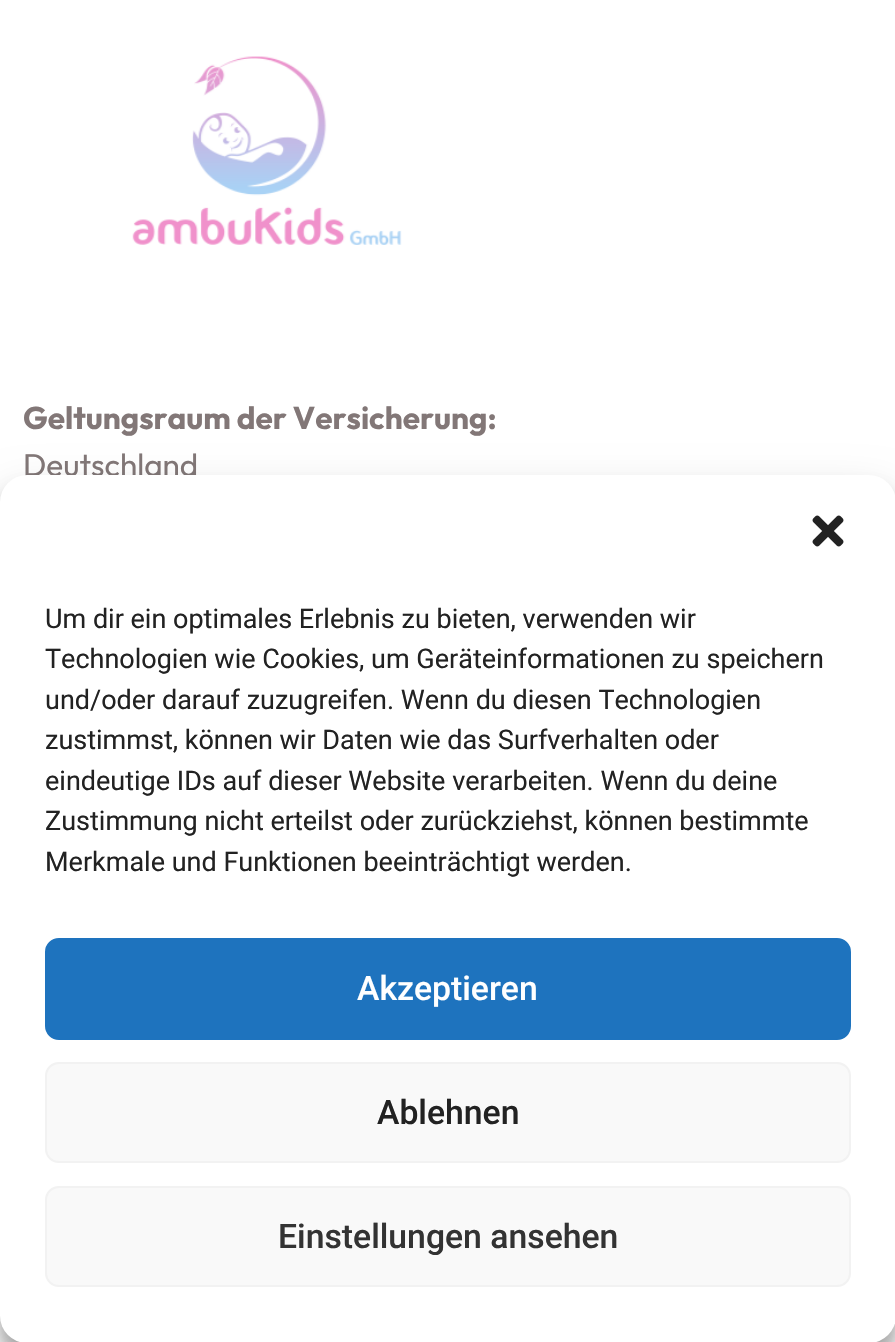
void draw(SkCanvas* canvas) {
    SkPaint paint;
    paint.setAntiAlias(true);
    auto face = [&](const char* family, int weight, float size, bool italic = false) {
        SkFontStyle style(weight, SkFontStyle::kNormal_Width,
            italic ? SkFontStyle::kItalic_Slant : SkFontStyle::kUpright_Slant);
        SkFont result(fontMgr->matchFamilyStyle(family, style), size);
        result.setSubpixel(true);
        return result;
    };
    auto write = [&](const char* s, float x, float y, const SkFont& font, SkColor color) {
        SkPaint ink(SkColor4f::FromColor(color));
        ink.setAntiAlias(true);
        canvas->drawString(s, x, y, font, ink);
    };
    auto card = [&](float x, float y, float w, float h, float radius, SkColor color) {
        SkPaint ink(SkColor4f::FromColor(color));
        ink.setAntiAlias(true);
        canvas->drawRoundRect(SkRect::MakeXYWH(x, y, w, h), radius, radius, ink);
    };
    auto paste = [&](const char* path, float x, float y, float w, float h) {
        auto image = SkImages::DeferredFromEncodedData(SkData::MakeFromFileName(path));
        canvas->drawImageRect(image, SkRect::MakeXYWH(x, y, w, h), SkSamplingOptions());
    };
    canvas->clear(SK_ColorWHITE);
    paste("pic1.png", 132, 56, 270, 189);
    auto kFont1 = face("Outfit", 700, 31.5f);
    write("Geltungsraum der Versicherung:", 23, 429, kFont1, SkColorSetRGB(130, 119, 119));
    auto kFont2 = face("Outfit", 400, 31.5f);
    write("Deutschland", 23, 476, kFont2, SkColorSetRGB(130, 119, 119));
    paint.setColor(SkColorSetARGB(59, 0, 0, 0));
    paint.setMaskFilter(SkMaskFilter::MakeBlur(kNormal_SkBlurStyle, 7));
    canvas->drawRoundRect(SkRect::MakeXYWH(0, 488, 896, 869), 27, 27, paint);
    paint.setMaskFilter(nullptr);
    paint.setColor(SkColorSetARGB(48, 0, 0, 0));
    paint.setMaskFilter(SkMaskFilter::MakeBlur(kNormal_SkBlurStyle, 22.5f));
    canvas->drawRoundRect(SkRect::MakeXYWH(0, 497, 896, 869), 27, 27, paint);
    paint.setMaskFilter(nullptr);
    card(0, 475, 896, 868, 27, SK_ColorWHITE);
    paste("pic2.png", 812, 515, 32, 32);
    auto kFont3 = face("Roboto", 400, 27);
    write("Um dir ein optimales Erlebnis zu bieten, verwenden wir", 45, 628, kFont3, SkColorSetRGB(34, 34, 34));
    write("Technologien wie Cookies, um Geräteinformationen zu speichern", 45, 668, kFont3, SkColorSetRGB(34, 34, 34));
    write("und/oder darauf zuzugreifen. Wenn du diesen Technologien", 45, 709, kFont3, SkColorSetRGB(34, 34, 34));
    write("zustimmst, können wir Daten wie das Surfverhalten oder", 45, 749, kFont3, SkColorSetRGB(34, 34, 34));
    write("eindeutige IDs auf dieser Website verarbeiten. Wenn du deine", 45, 790, kFont3, SkColorSetRGB(34, 34, 34));
    write("Zustimmung nicht erteilst oder zurückziehst, können bestimmte", 45, 830, kFont3, SkColorSetRGB(34, 34, 34));
    write("Merkmale und Funktionen beeinträchtigt werden.", 45, 871, kFont3, SkColorSetRGB(34, 34, 34));
    paint.setColor(SkColorSetRGB(30, 115, 190));
    canvas->drawRoundRect(SkRect::MakeXYWH(46, 939, 804, 100), 13, 13, paint);
    paint.setStyle(SkPaint::kStroke_Style);
    paint.setStrokeWidth(2);
    canvas->drawRoundRect(SkRect::MakeXYWH(46, 939, 804, 100), 13, 13, paint);
    auto kFont4 = face("Roboto", 500, 33.75f);
    write("Akzeptieren", 357, 1000, kFont4, SK_ColorWHITE);
    paint.setStyle(SkPaint::kFill_Style);
    paint.setColor(SkColorSetRGB(249, 249, 249));
    canvas->drawRoundRect(SkRect::MakeXYWH(46, 1063, 804, 99), 13, 13, paint);
    paint.setStyle(SkPaint::kStroke_Style);
    paint.setColor(SkColorSetRGB(242, 242, 242));
    canvas->drawRoundRect(SkRect::MakeXYWH(46, 1063, 804, 99), 13, 13, paint);
    write("Ablehnen", 377, 1124, kFont4, SkColorSetRGB(34, 34, 34));
    paint.setStyle(SkPaint::kFill_Style);
    paint.setColor(SkColorSetRGB(249, 249, 249));
    canvas->drawRoundRect(SkRect::MakeXYWH(46, 1187, 804, 99), 13, 13, paint);
    paint.setStyle(SkPaint::kStroke_Style);
    paint.setColor(SkColorSetRGB(242, 242, 242));
    canvas->drawRoundRect(SkRect::MakeXYWH(46, 1187, 804, 99), 13, 13, paint);
    write("Einstellungen ansehen", 278, 1248, kFont4, SkColorSetRGB(51, 51, 51));
}
